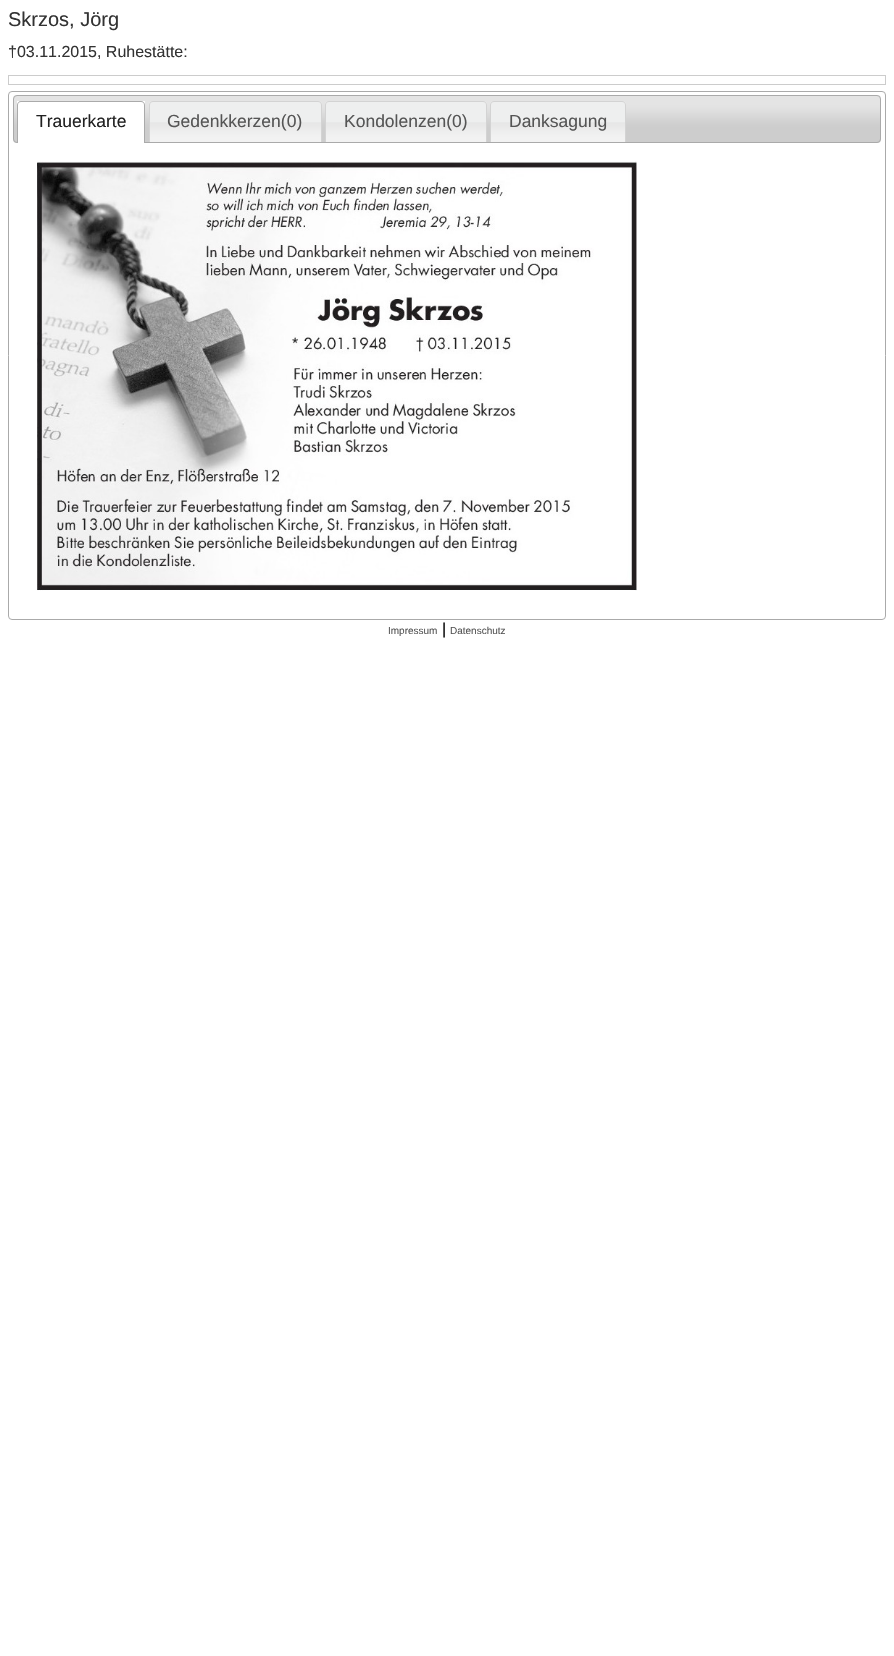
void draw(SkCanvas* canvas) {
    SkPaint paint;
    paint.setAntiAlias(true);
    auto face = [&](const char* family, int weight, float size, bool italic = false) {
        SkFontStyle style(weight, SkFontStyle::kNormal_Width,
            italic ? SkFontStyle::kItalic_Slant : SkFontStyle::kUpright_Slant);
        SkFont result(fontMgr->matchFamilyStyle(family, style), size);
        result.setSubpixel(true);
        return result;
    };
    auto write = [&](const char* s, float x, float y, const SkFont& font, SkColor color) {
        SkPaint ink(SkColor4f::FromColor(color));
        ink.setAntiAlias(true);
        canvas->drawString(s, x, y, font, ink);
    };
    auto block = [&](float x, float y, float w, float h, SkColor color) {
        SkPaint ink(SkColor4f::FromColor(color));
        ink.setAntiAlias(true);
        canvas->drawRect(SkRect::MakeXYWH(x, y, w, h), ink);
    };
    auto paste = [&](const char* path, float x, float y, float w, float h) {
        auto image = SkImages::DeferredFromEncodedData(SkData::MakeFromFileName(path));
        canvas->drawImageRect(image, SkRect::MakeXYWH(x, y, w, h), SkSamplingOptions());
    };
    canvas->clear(SK_ColorWHITE);
    auto kFont1 = face("Liberation Sans", 400, 20);
    write("Skrzos, Jörg", 8, 26, kFont1, SkColorSetRGB(51, 51, 51));
    auto kFont2 = face("Liberation Sans", 400, 16);
    write("†03.11.2015, Ruhestätte:", 8, 57, kFont2, SkColorSetRGB(51, 51, 51));
    paint.setStyle(SkPaint::kStroke_Style);
    paint.setStrokeWidth(1);
    paint.setColor(SkColorSetRGB(204, 204, 204));
    canvas->drawRect(SkRect::MakeXYWH(8.5f, 75.5f, 877, 9), paint);
    paint.setColor(SkColorSetRGB(170, 170, 170));
    canvas->drawRoundRect(SkRect::MakeXYWH(8.5f, 91.5f, 877, 528), 3.5f, 3.5f, paint);
    paste("pic1.png", 13, 95, 868, 48);
    canvas->drawRoundRect(SkRect::MakeXYWH(13.5f, 95.5f, 867, 47), 3.5f, 3.5f, paint);
    block(17, 101, 128, 42, SK_ColorWHITE);
    paint.setStyle(SkPaint::kFill_Style);
    canvas->drawPath(SkPathBuilder(SkPathFillType::kEvenOdd).moveTo(21, 101).lineTo(141, 101).cubicTo(143, 101, 145, 103, 145, 105).lineTo(145, 143).lineTo(17, 143).lineTo(17, 105).cubicTo(17, 103, 19, 101, 21, 101).close().moveTo(21, 102).lineTo(141, 102).cubicTo(143, 102, 144, 103, 144, 105).lineTo(144, 143).lineTo(18, 143).lineTo(18, 105).cubicTo(18, 103, 19, 102, 21, 102).close().detach(), paint);
    auto kFont3 = face("Liberation Sans", 400, 17.5f);
    write("Trauerkarte", 36, 127, kFont3, SkColorSetRGB(33, 33, 33));
    paste("pic2.png", 149, 101, 173, 41);
    paint.setColor(SkColorSetRGB(211, 211, 211));
    canvas->drawPath(SkPathBuilder(SkPathFillType::kEvenOdd).moveTo(153, 101).lineTo(318, 101).cubicTo(320, 101, 322, 103, 322, 105).lineTo(322, 142).lineTo(149, 142).lineTo(149, 105).cubicTo(149, 103, 151, 101, 153, 101).close().moveTo(153, 102).lineTo(318, 102).cubicTo(320, 102, 321, 103, 321, 105).lineTo(321, 142).lineTo(150, 142).lineTo(150, 105).cubicTo(150, 103, 151, 102, 153, 102).close().detach(), paint);
    write("Gedenkkerzen(0)", 167, 127, kFont3, SkColorSetRGB(85, 85, 85));
    paste("pic3.png", 325, 101, 162, 41);
    canvas->drawPath(SkPathBuilder(SkPathFillType::kEvenOdd).moveTo(329, 101).lineTo(483, 101).cubicTo(485, 101, 487, 103, 487, 105).lineTo(487, 142).lineTo(325, 142).lineTo(325, 105).cubicTo(325, 103, 327, 101, 329, 101).close().moveTo(329, 102).lineTo(483, 102).cubicTo(485, 102, 486, 103, 486, 105).lineTo(486, 142).lineTo(326, 142).lineTo(326, 105).cubicTo(326, 103, 327, 102, 329, 102).close().detach(), paint);
    write("Kondolenzen(0)", 344, 127, kFont3, SkColorSetRGB(85, 85, 85));
    paste("pic4.png", 490, 101, 136, 41);
    canvas->drawPath(SkPathBuilder(SkPathFillType::kEvenOdd).moveTo(494, 101).lineTo(622, 101).cubicTo(624, 101, 626, 103, 626, 105).lineTo(626, 142).lineTo(490, 142).lineTo(490, 105).cubicTo(490, 103, 492, 101, 494, 101).close().moveTo(494, 102).lineTo(622, 102).cubicTo(624, 102, 625, 103, 625, 105).lineTo(625, 142).lineTo(491, 142).lineTo(491, 105).cubicTo(491, 103, 492, 102, 494, 102).close().detach(), paint);
    write("Danksagung", 509, 127, kFont3, SkColorSetRGB(85, 85, 85));
    paste("pic5.png", 37, 161, 600, 430);
    auto kFont4 = face("Liberation Sans", 400, 10);
    write("Impressum", 388, 634, kFont4, SkColorSetRGB(85, 85, 85));
    write("|", 442, 634, kFont2, SK_ColorBLACK);
    write("Datenschutz", 450, 634, kFont4, SkColorSetRGB(85, 85, 85));
}
